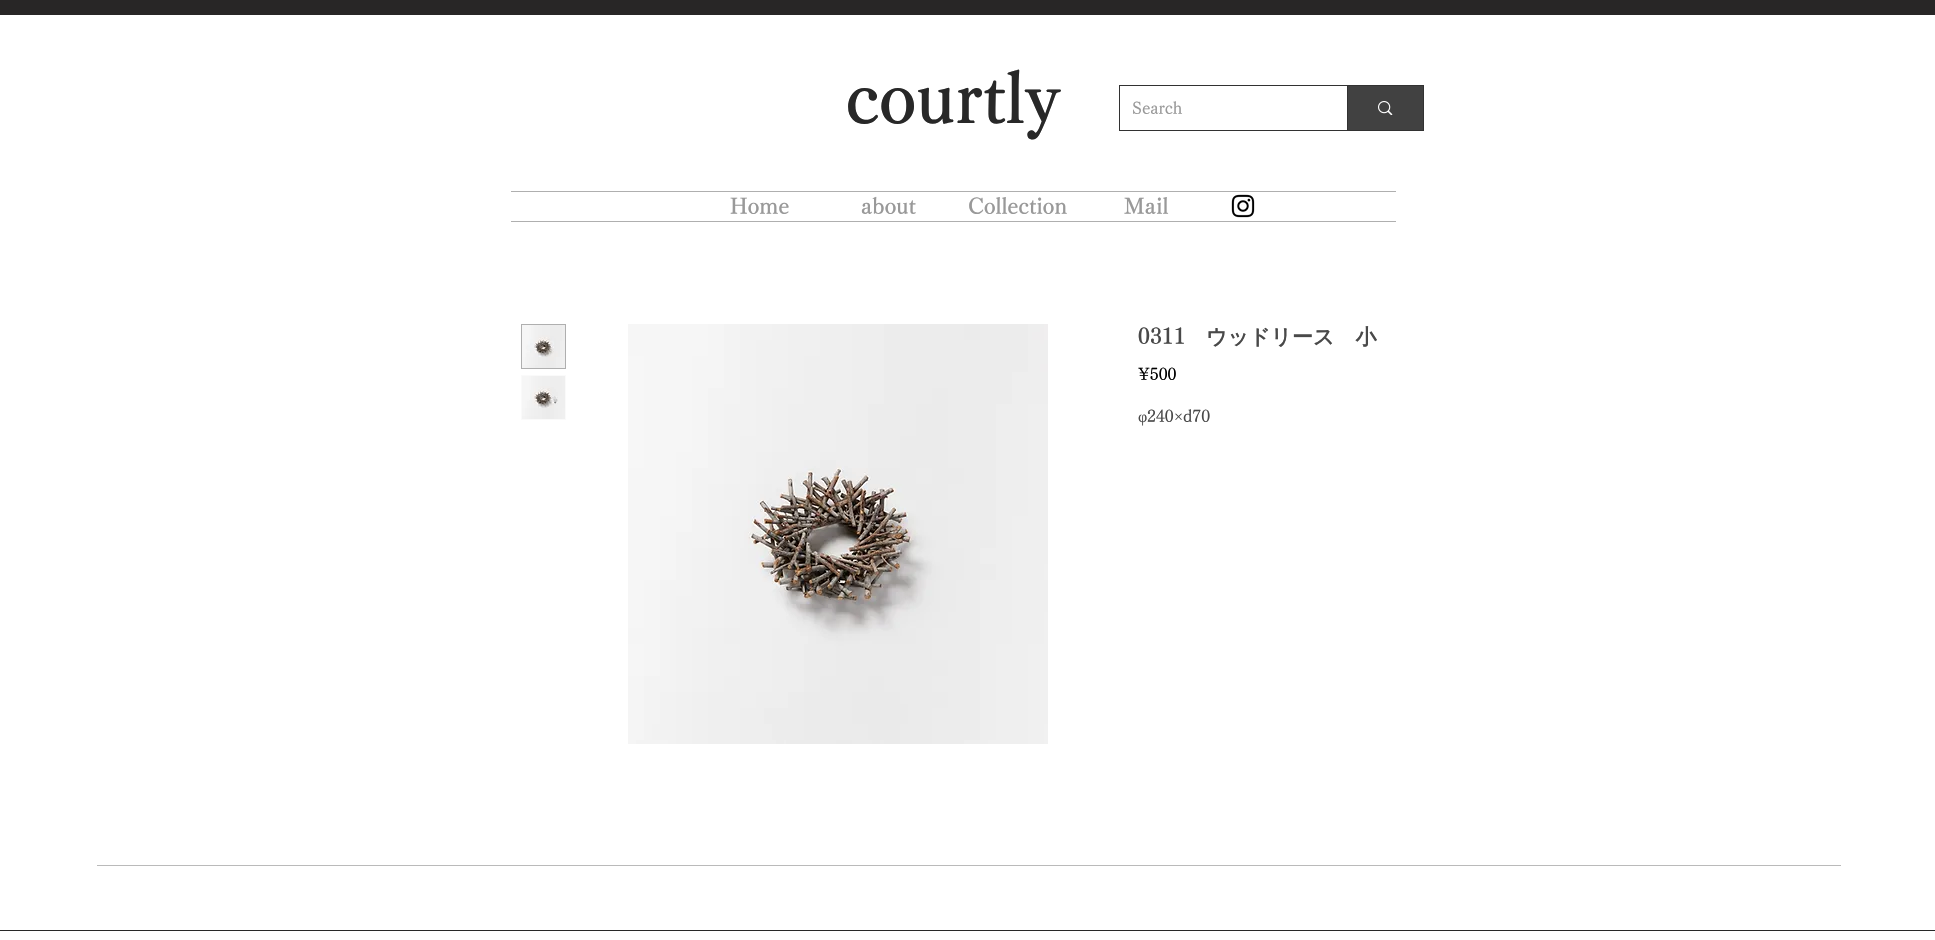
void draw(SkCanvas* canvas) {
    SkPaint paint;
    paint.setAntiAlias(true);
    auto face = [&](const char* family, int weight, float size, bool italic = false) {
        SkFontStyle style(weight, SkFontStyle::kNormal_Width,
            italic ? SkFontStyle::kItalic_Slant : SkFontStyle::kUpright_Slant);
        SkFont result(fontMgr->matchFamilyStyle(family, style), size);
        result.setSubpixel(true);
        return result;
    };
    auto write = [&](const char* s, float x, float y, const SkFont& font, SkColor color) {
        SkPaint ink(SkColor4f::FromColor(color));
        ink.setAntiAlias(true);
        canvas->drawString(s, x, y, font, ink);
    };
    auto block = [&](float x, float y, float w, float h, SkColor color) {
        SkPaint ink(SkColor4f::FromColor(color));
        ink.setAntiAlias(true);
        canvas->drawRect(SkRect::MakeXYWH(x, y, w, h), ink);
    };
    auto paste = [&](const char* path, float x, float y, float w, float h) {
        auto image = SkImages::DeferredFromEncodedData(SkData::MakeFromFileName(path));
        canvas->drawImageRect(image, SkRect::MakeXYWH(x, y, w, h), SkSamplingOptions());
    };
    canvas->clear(SK_ColorWHITE);
    block(0, 0, 1935, 15, SkColorSetRGB(40, 38, 38));
    auto kFont1 = face("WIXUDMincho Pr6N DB", 600, 67);
    write("courtly", 845, 124, kFont1, SkColorSetRGB(40, 40, 40));
    paint.setStyle(SkPaint::kStroke_Style);
    paint.setStrokeWidth(1);
    paint.setColor(SkColorSetRGB(50, 50, 50));
    canvas->drawRect(SkRect::MakeXYWH(1119.5f, 85.5f, 304, 45), paint);
    auto kFont2 = face("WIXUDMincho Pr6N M", 500, 16);
    write("Search", 1132, 114, kFont2, SkColorSetRGB(153, 153, 153));
    block(1348, 86, 75, 44, SkColorSetRGB(65, 65, 65));
    block(1347, 86, 1, 44, SkColorSetRGB(50, 50, 50));
    paste("pic1.png", 1378, 101, 15, 14);
    block(511, 191, 885, 1, SkColorSetRGB(175, 175, 175));
    block(511, 221, 885, 1, SkColorSetRGB(175, 175, 175));
    auto kFont3 = face("WIXUDMincho Pr6N DB", 600, 21);
    write("Home", 730, 214, kFont3, SkColorSetRGB(153, 153, 153));
    write("about", 861, 214, kFont3, SkColorSetRGB(153, 153, 153));
    write("Collection", 968, 214, kFont3, SkColorSetRGB(153, 153, 153));
    write("Mail", 1124, 214, kFont3, SkColorSetRGB(153, 153, 153));
    paste("pic2.png", 1231, 194, 24, 24);
    paint.setColor(SkColorSetRGB(175, 175, 175));
    canvas->drawRect(SkRect::MakeXYWH(521.5f, 324.5f, 44, 44), paint);
    paste("pic3.png", 522, 325, 43, 43);
    block(521, 375, 45, 45, SkColorSetRGB(250, 250, 250));
    paste("pic4.png", 522, 376, 43, 43);
    paste("pic5.png", 628, 324, 420, 420);
    write("0311", 1138, 344, kFont3, SkColorSetRGB(73, 73, 73));
    auto kFont4 = face("WenQuanYi Zen Hei", 700, 21);
    write("ウッドリース　小", 1206, 344, kFont4, SkColorSetRGB(73, 73, 73));
    write("¥500", 1138, 380, kFont2, SK_ColorBLACK);
    auto kFont5 = face("Liberation Serif", 400, 16);
    write("φ", 1138, 422, kFont5, SkColorSetRGB(73, 73, 73));
    write("240", 1147, 422, kFont2, SkColorSetRGB(73, 73, 73));
    write("×", 1174, 422, kFont5, SkColorSetRGB(73, 73, 73));
    write("d70", 1183, 422, kFont2, SkColorSetRGB(73, 73, 73));
    block(97, 865, 1744, 1, SkColorSetRGB(186, 186, 186));
    block(0, 930, 1935, 1, SkColorSetRGB(40, 40, 40));
}
